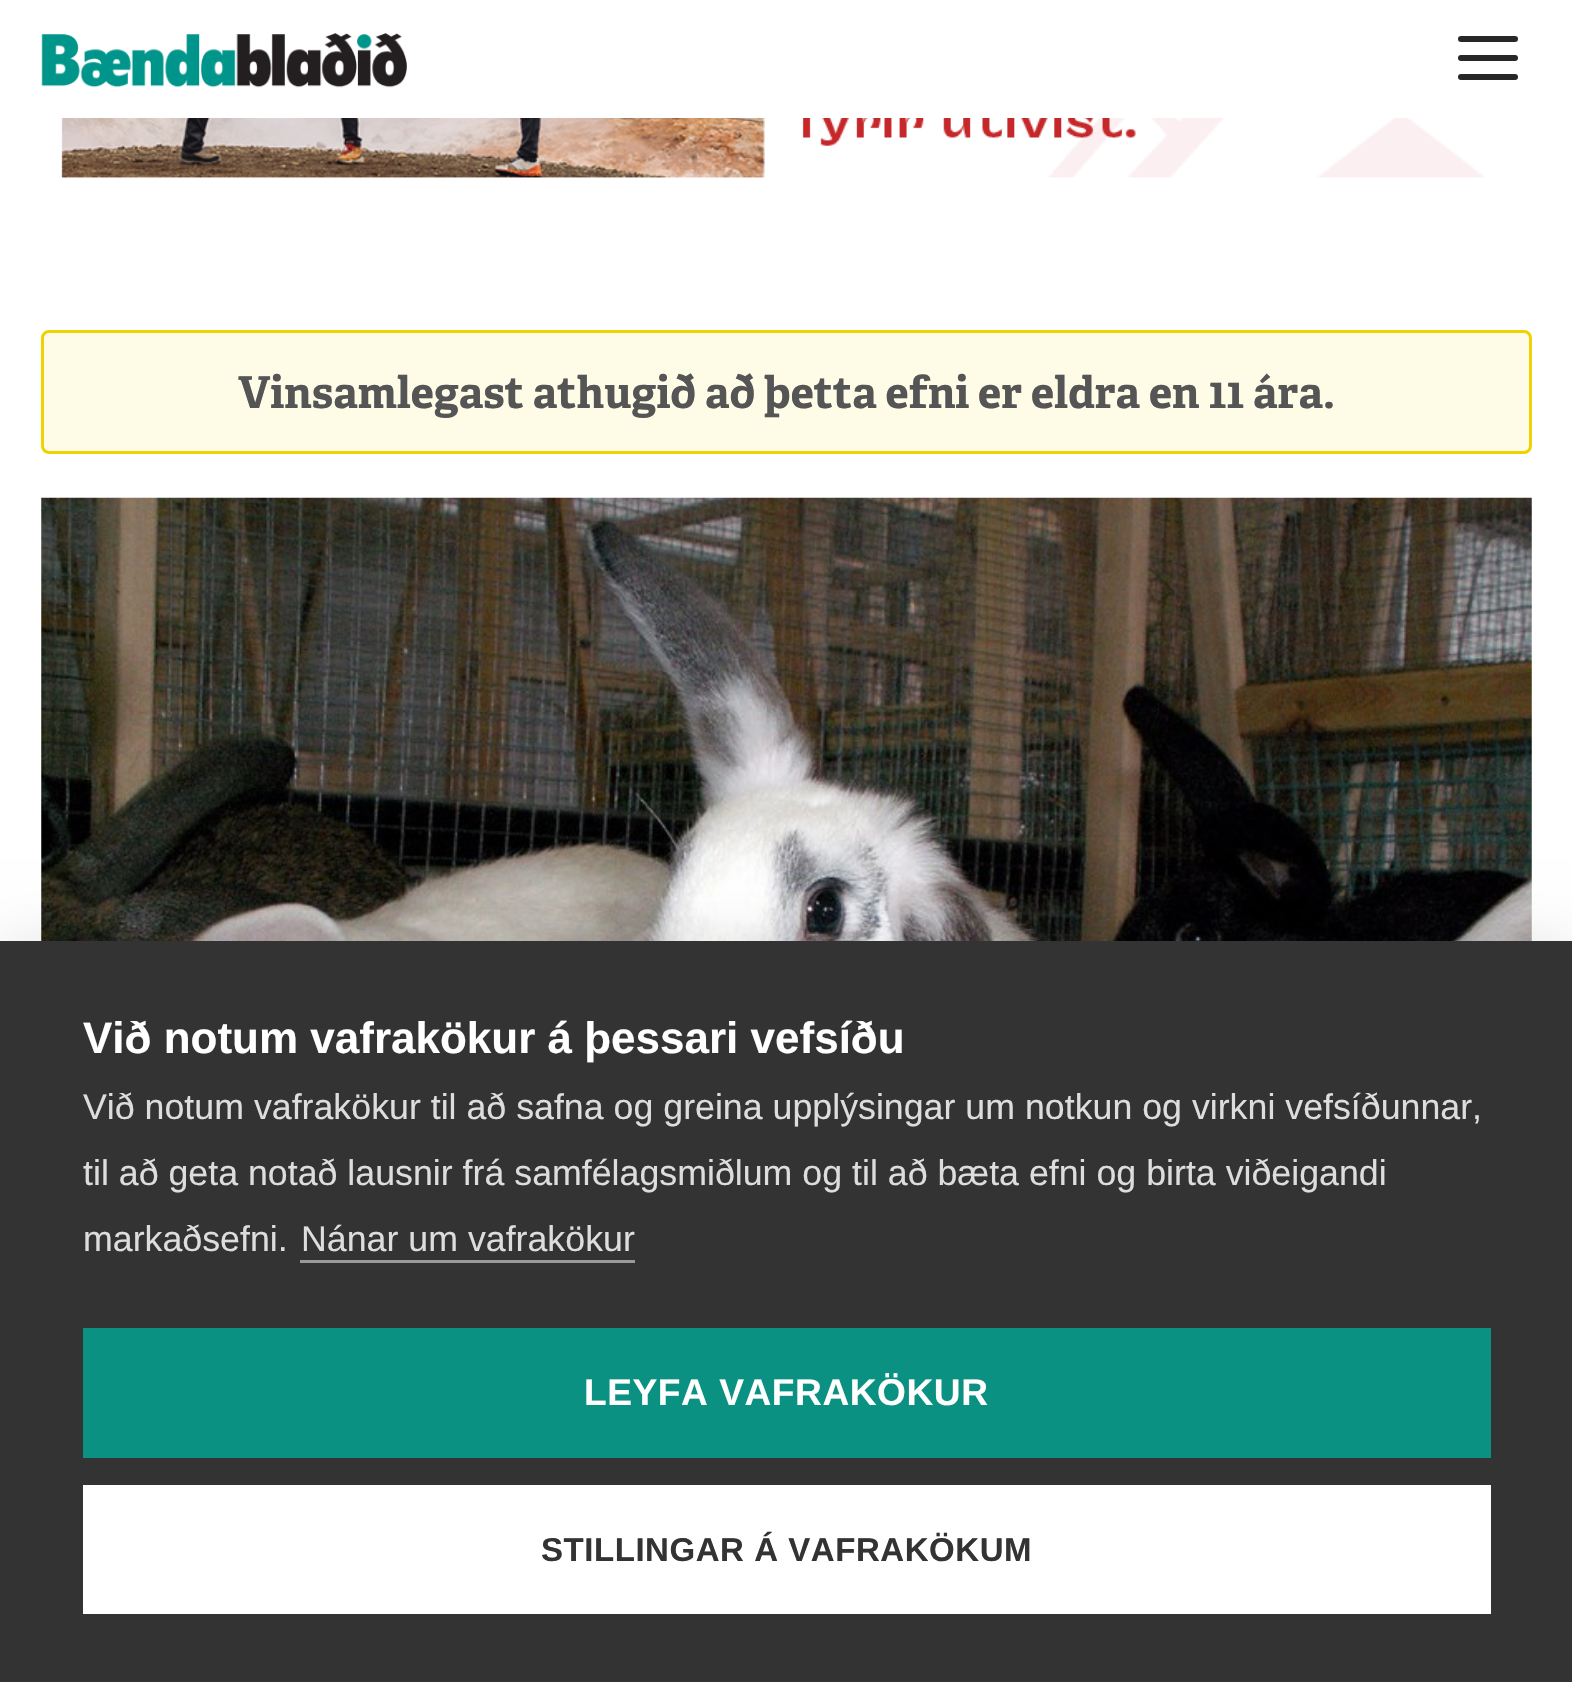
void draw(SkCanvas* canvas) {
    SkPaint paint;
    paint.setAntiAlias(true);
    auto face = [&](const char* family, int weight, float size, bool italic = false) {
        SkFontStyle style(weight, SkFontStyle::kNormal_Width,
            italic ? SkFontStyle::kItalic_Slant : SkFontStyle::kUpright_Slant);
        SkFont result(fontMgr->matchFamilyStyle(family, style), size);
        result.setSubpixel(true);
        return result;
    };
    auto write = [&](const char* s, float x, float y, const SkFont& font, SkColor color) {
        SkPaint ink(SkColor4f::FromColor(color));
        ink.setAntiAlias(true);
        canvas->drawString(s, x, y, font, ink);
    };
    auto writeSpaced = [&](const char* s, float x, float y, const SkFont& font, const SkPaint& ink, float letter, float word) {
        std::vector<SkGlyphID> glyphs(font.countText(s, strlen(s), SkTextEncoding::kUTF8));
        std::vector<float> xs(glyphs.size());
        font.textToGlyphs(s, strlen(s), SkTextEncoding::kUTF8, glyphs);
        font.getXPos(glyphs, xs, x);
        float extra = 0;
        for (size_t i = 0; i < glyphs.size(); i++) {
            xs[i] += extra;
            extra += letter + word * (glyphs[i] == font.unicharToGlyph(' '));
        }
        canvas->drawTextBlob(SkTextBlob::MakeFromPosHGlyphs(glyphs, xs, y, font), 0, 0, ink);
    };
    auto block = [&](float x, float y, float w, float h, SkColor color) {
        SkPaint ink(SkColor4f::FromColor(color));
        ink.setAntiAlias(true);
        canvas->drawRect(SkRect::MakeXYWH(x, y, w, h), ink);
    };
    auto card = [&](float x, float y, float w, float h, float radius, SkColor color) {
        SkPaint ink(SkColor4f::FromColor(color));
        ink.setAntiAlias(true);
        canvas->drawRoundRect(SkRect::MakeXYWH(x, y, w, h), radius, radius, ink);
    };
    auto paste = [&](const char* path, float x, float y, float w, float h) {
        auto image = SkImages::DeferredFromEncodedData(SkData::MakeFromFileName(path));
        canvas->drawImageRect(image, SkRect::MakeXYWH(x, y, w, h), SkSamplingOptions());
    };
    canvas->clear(SK_ColorWHITE);
    paste("pic1.png", 41, 33, 366, 55);
    card(1458, 36, 60, 6, 3, SkColorSetRGB(39, 39, 39));
    card(1458, 55, 60, 6, 3, SkColorSetRGB(39, 39, 39));
    card(1458, 74, 60, 6, 3, SkColorSetRGB(39, 39, 39));
    paste("pic2.png", 61, 118, 1471, 60);
    paint.setColor(SkColorSetRGB(254, 252, 231));
    canvas->drawRoundRect(SkRect::MakeXYWH(42.5f, 331.5f, 1488, 121), 6.5f, 6.5f, paint);
    paint.setStyle(SkPaint::kStroke_Style);
    paint.setStrokeWidth(3);
    paint.setColor(SkColorSetRGB(238, 210, 2));
    canvas->drawRoundRect(SkRect::MakeXYWH(42.5f, 331.5f, 1488, 121), 6.5f, 6.5f, paint);
    auto kFont1 = face("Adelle", 700, 44);
    write("Vinsamlegast athugið að þetta efni er eldra en 11 ára.", 238, 408, kFont1, SkColorSetRGB(85, 85, 85));
    paste("pic3.png", 41, 497, 1491, 444);
    paint.setStyle(SkPaint::kFill_Style);
    paint.setColor(SkColorSetARGB(26, 0, 0, 0));
    paint.setMaskFilter(SkMaskFilter::MakeBlur(kNormal_SkBlurStyle, 27.5f));
    canvas->drawRect(SkRect::MakeXYWH(0, 941, 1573, 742), paint);
    paint.setMaskFilter(nullptr);
    block(0, 941, 1572, 741, SkColorSetRGB(51, 51, 51));
    auto kFont2 = face("Liberation Sans", 700, 44);
    write("Við notum vafrakökur á þessari vefsíðu", 83, 1053, kFont2, SK_ColorWHITE);
    auto kFont3 = face("Liberation Sans", 400, 35.75f);
    write("Við notum vafrakökur til að safna og greina upplýsingar um notkun og virkni vefsíðunnar,", 83, 1119, kFont3, SkColorSetRGB(221, 221, 221));
    write("til að geta notað lausnir frá samfélagsmiðlum og til að bæta efni og birta viðeigandi", 83, 1185, kFont3, SkColorSetRGB(221, 221, 221));
    write("markaðsefni.", 83, 1251, kFont3, SkColorSetRGB(221, 221, 221));
    write("Nánar um vafrakökur", 301, 1251, kFont3, SkColorSetRGB(221, 221, 221));
    block(300, 1260, 335, 3, SkColorSetRGB(153, 153, 153));
    block(83, 1328, 1408, 130, SkColorSetRGB(10, 145, 130));
    auto kFont4 = face("Liberation Sans", 700, 37.1f);
    paint.setColor(SK_ColorWHITE);
    writeSpaced("LEYFA VAFRAKÖKUR", 584, 1405, kFont4, paint, 0.55f, 0);
    block(83, 1485, 1408, 129, SK_ColorWHITE);
    auto kFont5 = face("Liberation Sans", 700, 33);
    paint.setColor(SkColorSetRGB(51, 51, 51));
    writeSpaced("STILLINGAR Á VAFRAKÖKUM", 541, 1561, kFont5, paint, 0.55f, 0);
}
